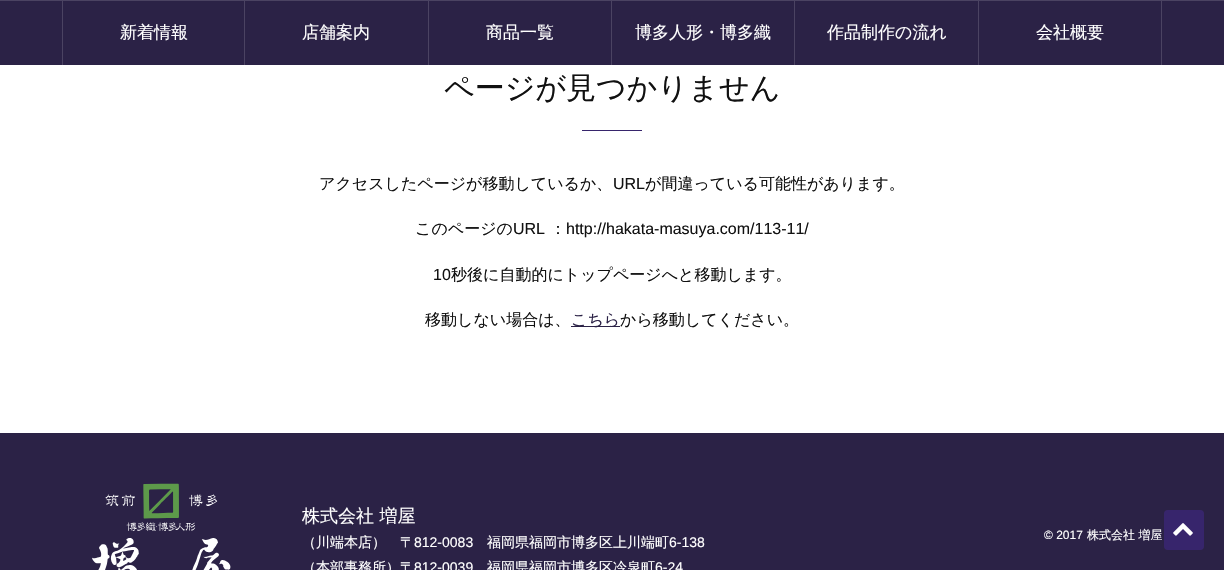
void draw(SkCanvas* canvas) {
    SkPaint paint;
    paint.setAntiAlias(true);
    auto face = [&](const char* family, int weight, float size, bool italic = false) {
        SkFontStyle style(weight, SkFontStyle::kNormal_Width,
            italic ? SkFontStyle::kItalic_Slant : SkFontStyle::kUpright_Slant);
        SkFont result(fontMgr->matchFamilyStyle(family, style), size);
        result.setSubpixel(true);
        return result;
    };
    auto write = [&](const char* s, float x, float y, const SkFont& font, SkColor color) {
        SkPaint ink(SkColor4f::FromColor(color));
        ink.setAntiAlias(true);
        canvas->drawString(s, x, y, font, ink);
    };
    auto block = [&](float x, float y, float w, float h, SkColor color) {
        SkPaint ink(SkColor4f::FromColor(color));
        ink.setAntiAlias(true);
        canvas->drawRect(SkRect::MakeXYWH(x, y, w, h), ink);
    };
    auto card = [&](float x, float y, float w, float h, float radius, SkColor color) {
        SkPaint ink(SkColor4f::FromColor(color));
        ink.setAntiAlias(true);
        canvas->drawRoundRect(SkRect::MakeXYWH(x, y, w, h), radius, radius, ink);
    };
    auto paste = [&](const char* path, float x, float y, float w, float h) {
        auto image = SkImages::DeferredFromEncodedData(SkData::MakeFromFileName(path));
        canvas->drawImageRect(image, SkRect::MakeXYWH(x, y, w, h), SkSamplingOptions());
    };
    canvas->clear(SK_ColorWHITE);
    block(0, 1, 1224, 64, SkColorSetRGB(43, 34, 70));
    block(0, 0, 1224, 1, SkColorSetRGB(75, 67, 98));
    block(244, 1, 1, 64, SkColorSetRGB(75, 67, 98));
    block(62, 1, 1, 64, SkColorSetRGB(75, 67, 98));
    auto kFont1 = face("WenQuanYi Zen Hei", 500, 17);
    write("新着情報", 120, 38, kFont1, SK_ColorWHITE);
    block(428, 1, 1, 64, SkColorSetRGB(75, 67, 98));
    write("店舗案内", 302, 38, kFont1, SK_ColorWHITE);
    block(611, 1, 1, 64, SkColorSetRGB(75, 67, 98));
    write("商品一覧", 486, 38, kFont1, SK_ColorWHITE);
    block(794, 1, 1, 64, SkColorSetRGB(75, 67, 98));
    write("博多人形・博多織", 635, 38, kFont1, SK_ColorWHITE);
    block(978, 1, 1, 64, SkColorSetRGB(75, 67, 98));
    write("作品制作の流れ", 827, 38, kFont1, SK_ColorWHITE);
    block(1161, 1, 1, 64, SkColorSetRGB(75, 67, 98));
    write("会社概要", 1036, 38, kFont1, SK_ColorWHITE);
    auto kFont2 = face("WenQuanYi Zen Hei", 500, 30);
    write("ページが見つかりません", 444, 98, kFont2, SkColorSetRGB(17, 17, 17));
    block(582, 130, 60, 1, SkColorSetRGB(55, 37, 108));
    auto kFont3 = face("WenQuanYi Zen Hei", 500, 16);
    write("アクセスしたページが移動しているか、", 319, 189, kFont3, SkColorSetRGB(17, 17, 17));
    auto kFont4 = face("Liberation Sans", 400, 16);
    write("URL", 613, 189, kFont4, SkColorSetRGB(17, 17, 17));
    write("が間違っている可能性があります。", 645, 189, kFont3, SkColorSetRGB(17, 17, 17));
    write("このページの", 415, 234, kFont3, SkColorSetRGB(17, 17, 17));
    write("URL", 513, 234, kFont4, SkColorSetRGB(17, 17, 17));
    write("：", 550, 234, kFont3, SkColorSetRGB(17, 17, 17));
    write("http://hakata-masuya.com/113-11/", 566, 234, kFont4, SkColorSetRGB(17, 17, 17));
    write("10", 433, 280, kFont4, SkColorSetRGB(17, 17, 17));
    write("秒後に自動的にトップページへと移動します。", 451, 280, kFont3, SkColorSetRGB(17, 17, 17));
    write("移動しない場合は、", 425, 325, kFont3, SkColorSetRGB(17, 17, 17));
    block(571, 326, 49, 1, SkColorSetRGB(43, 34, 70));
    write("こちら", 571, 325, kFont3, SkColorSetRGB(43, 34, 70));
    write("から移動してください。", 620, 325, kFont3, SkColorSetRGB(17, 17, 17));
    block(0, 433, 1224, 137, SkColorSetRGB(43, 34, 70));
    paste("pic1.png", 92, 483, 139, 87);
    auto kFont5 = face("WenQuanYi Zen Hei", 500, 18);
    write("株式会社 増屋", 302, 522, kFont5, SK_ColorWHITE);
    auto kFont6 = face("WenQuanYi Zen Hei", 500, 14);
    write("（川端本店）　〒", 302, 547, kFont6, SK_ColorWHITE);
    auto kFont7 = face("Liberation Sans", 400, 14);
    write("812-0083", 414, 547, kFont7, SK_ColorWHITE);
    write("福岡県福岡市博多区上川端町", 487, 547, kFont6, SK_ColorWHITE);
    write("6-138", 669, 547, kFont7, SK_ColorWHITE);
    write("（本部事務所）〒", 302, 572, kFont6, SK_ColorWHITE);
    write("812-0039", 414, 572, kFont7, SK_ColorWHITE);
    write("福岡県福岡市博多区冷泉町", 487, 572, kFont6, SK_ColorWHITE);
    write("6-24", 655, 572, kFont7, SK_ColorWHITE);
    auto kFont8 = face("Liberation Sans", 400, 12);
    write("© 2017", 1044, 539, kFont8, SK_ColorWHITE);
    auto kFont9 = face("WenQuanYi Zen Hei", 500, 12);
    write("株式会社 増屋", 1087, 539, kFont9, SK_ColorWHITE);
    card(1164, 510, 40, 40, 4, SkColorSetRGB(55, 37, 108));
    paste("pic2.png", 1173, 523, 20, 13);
}
